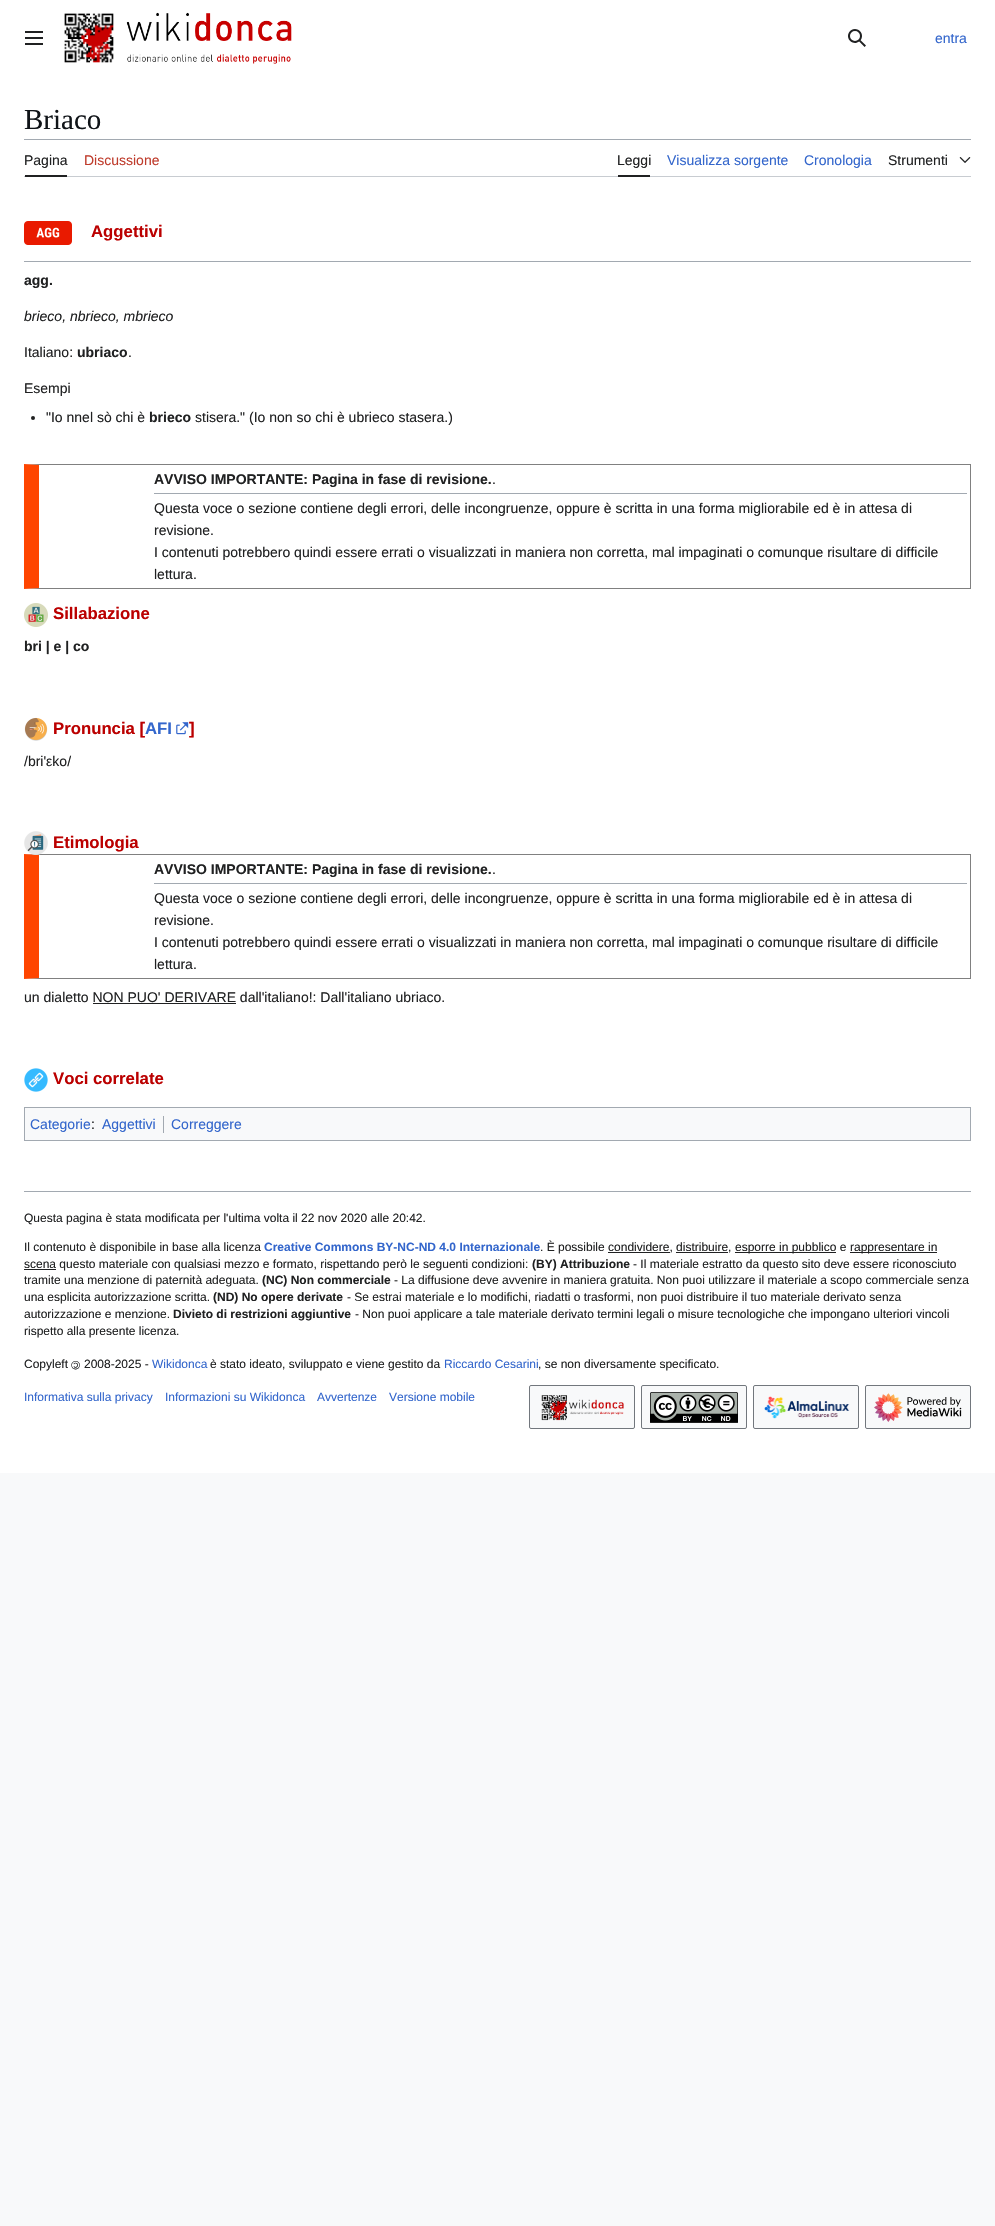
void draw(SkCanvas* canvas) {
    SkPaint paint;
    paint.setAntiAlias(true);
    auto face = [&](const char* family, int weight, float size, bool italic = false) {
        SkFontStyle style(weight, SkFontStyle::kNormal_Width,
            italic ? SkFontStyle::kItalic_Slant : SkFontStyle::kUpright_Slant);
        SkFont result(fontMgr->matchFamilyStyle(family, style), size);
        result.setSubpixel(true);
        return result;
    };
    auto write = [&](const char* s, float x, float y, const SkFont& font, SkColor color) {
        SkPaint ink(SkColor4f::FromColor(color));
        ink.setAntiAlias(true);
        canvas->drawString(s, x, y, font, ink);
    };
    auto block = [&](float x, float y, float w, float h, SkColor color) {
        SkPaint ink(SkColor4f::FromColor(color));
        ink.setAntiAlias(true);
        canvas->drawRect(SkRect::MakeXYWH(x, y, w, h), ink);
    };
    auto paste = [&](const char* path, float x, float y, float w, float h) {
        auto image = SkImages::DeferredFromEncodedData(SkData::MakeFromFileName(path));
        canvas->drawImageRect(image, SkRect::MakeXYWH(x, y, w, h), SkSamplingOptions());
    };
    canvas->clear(SkColorSetRGB(248, 249, 250));
    block(0, 0, 995, 1473, SK_ColorWHITE);
    paste("pic1.png", 25, 31, 18, 14);
    paste("pic2.png", 64, 13, 50, 50);
    paste("pic3.png", 126, 12, 166, 29);
    paste("pic4.png", 127, 54, 164, 10);
    paste("pic5.png", 848, 29, 18, 18);
    auto kFont1 = face("Liberation Sans", 400, 14);
    write("entra", 935, 43, kFont1, SkColorSetRGB(51, 102, 204));
    auto kFont2 = face("Liberation Serif", 400, 29);
    write("Briaco", 24, 129, kFont2, SkColorSetRGB(16, 20, 24));
    block(24, 139, 947, 1, SkColorSetRGB(162, 169, 177));
    block(24, 176, 947, 1, SkColorSetRGB(200, 204, 209));
    block(25, 175, 42, 2, SkColorSetRGB(32, 33, 34));
    write("Pagina", 24, 165, kFont1, SkColorSetRGB(32, 33, 34));
    write("Discussione", 84, 165, kFont1, SkColorSetRGB(191, 60, 44));
    block(618, 175, 32, 2, SkColorSetRGB(32, 33, 34));
    write("Leggi", 617, 165, kFont1, SkColorSetRGB(32, 33, 34));
    write("Visualizza sorgente", 667, 165, kFont1, SkColorSetRGB(51, 102, 204));
    write("Cronologia", 804, 165, kFont1, SkColorSetRGB(51, 102, 204));
    write("Strumenti", 888, 165, kFont1, SkColorSetRGB(32, 33, 34));
    paste("pic6.png", 959, 157, 12, 6);
    paste("pic7.png", 24, 221, 48, 24);
    auto kFont3 = face("Liberation Sans", 700, 16.75f);
    write("Aggettivi", 91, 237, kFont3, SkColorSetRGB(187, 0, 0));
    block(24, 261, 947, 1, SkColorSetRGB(162, 169, 177));
    auto kFont4 = face("Liberation Sans", 700, 14);
    write("agg.", 24, 285, kFont4, SkColorSetRGB(32, 33, 34));
    auto kFont5 = face("Liberation Sans", 400, 14, true);
    write("brieco, nbrieco, mbrieco", 24, 321, kFont5, SkColorSetRGB(32, 33, 34));
    write("Italiano:", 24, 357, kFont1, SkColorSetRGB(32, 33, 34));
    write("ubriaco", 77, 357, kFont4, SkColorSetRGB(32, 33, 34));
    write(".", 128, 357, kFont1, SkColorSetRGB(32, 33, 34));
    write("Esempi", 24, 393, kFont1, SkColorSetRGB(32, 33, 34));
    paint.setColor(SkColorSetRGB(32, 33, 34));
    canvas->drawCircle(33, 418, 2, paint);
    write("\"Io nnel sò chi è", 46, 422, kFont1, SkColorSetRGB(32, 33, 34));
    write("brieco", 149, 422, kFont4, SkColorSetRGB(32, 33, 34));
    write("stisera.\" (Io non so chi è ubrieco stasera.)", 195, 422, kFont1, SkColorSetRGB(32, 33, 34));
    paint.setColor(SkColorSetRGB(128, 128, 128));
    canvas->drawPath(SkPathBuilder().moveTo(24, 464).lineTo(971, 464).lineTo(970, 465).lineTo(39, 465).close().detach(), paint);
    block(970, 464, 1, 125, SkColorSetRGB(128, 128, 128));
    canvas->drawPath(SkPathBuilder().moveTo(971, 589).lineTo(24, 589).lineTo(39, 588).lineTo(970, 588).close().detach(), paint);
    paint.setColor(SkColorSetRGB(255, 69, 0));
    canvas->drawPath(SkPathBuilder().moveTo(24, 589).lineTo(24, 464).lineTo(39, 465).lineTo(39, 588).close().detach(), paint);
    write("AVVISO IMPORTANTE: Pagina in fase di revisione.", 154, 484, kFont4, SkColorSetRGB(32, 33, 34));
    write(".", 492, 484, kFont1, SkColorSetRGB(32, 33, 34));
    block(154, 493, 813, 1, SkColorSetRGB(162, 169, 177));
    write("Questa voce o sezione contiene degli errori, delle incongruenze, oppure è scritta in una forma migliorabile ed è in attesa di", 154, 513, kFont1, SkColorSetRGB(32, 33, 34));
    write("revisione.", 154, 535, kFont1, SkColorSetRGB(32, 33, 34));
    write("I contenuti potrebbero quindi essere errati o visualizzati in maniera non corretta, mal impaginati o comunque risultare di difficile", 154, 557, kFont1, SkColorSetRGB(32, 33, 34));
    write("lettura.", 154, 579, kFont1, SkColorSetRGB(32, 33, 34));
    paste("pic8.png", 24, 603, 24, 24);
    write("Sillabazione", 53, 619, kFont3, SkColorSetRGB(187, 0, 0));
    write("bri | e | co", 24, 651, kFont4, SkColorSetRGB(32, 33, 34));
    paste("pic9.png", 24, 717, 24, 24);
    write("Pronuncia [", 53, 734, kFont3, SkColorSetRGB(187, 0, 0));
    write("AFI", 145, 734, kFont3, SkColorSetRGB(51, 102, 204));
    paste("pic10.png", 176, 722, 13, 13);
    write("]", 189, 734, kFont3, SkColorSetRGB(187, 0, 0));
    write("/bri'εko/", 24, 766, kFont1, SkColorSetRGB(32, 33, 34));
    paint.setColor(SkColorSetRGB(128, 128, 128));
    canvas->drawPath(SkPathBuilder().moveTo(24, 854).lineTo(971, 854).lineTo(970, 855).lineTo(39, 855).close().detach(), paint);
    block(970, 854, 1, 125, SkColorSetRGB(128, 128, 128));
    canvas->drawPath(SkPathBuilder().moveTo(971, 979).lineTo(24, 979).lineTo(39, 978).lineTo(970, 978).close().detach(), paint);
    paint.setColor(SkColorSetRGB(255, 69, 0));
    canvas->drawPath(SkPathBuilder().moveTo(24, 979).lineTo(24, 854).lineTo(39, 855).lineTo(39, 978).close().detach(), paint);
    paste("pic11.png", 24, 831, 24, 24);
    write("Etimologia", 53, 848, kFont3, SkColorSetRGB(187, 0, 0));
    write("AVVISO IMPORTANTE: Pagina in fase di revisione.", 154, 874, kFont4, SkColorSetRGB(32, 33, 34));
    write(".", 492, 874, kFont1, SkColorSetRGB(32, 33, 34));
    block(154, 883, 813, 1, SkColorSetRGB(162, 169, 177));
    write("Questa voce o sezione contiene degli errori, delle incongruenze, oppure è scritta in una forma migliorabile ed è in attesa di", 154, 903, kFont1, SkColorSetRGB(32, 33, 34));
    write("revisione.", 154, 925, kFont1, SkColorSetRGB(32, 33, 34));
    write("I contenuti potrebbero quindi essere errati o visualizzati in maniera non corretta, mal impaginati o comunque risultare di difficile", 154, 947, kFont1, SkColorSetRGB(32, 33, 34));
    write("lettura.", 154, 969, kFont1, SkColorSetRGB(32, 33, 34));
    write("un dialetto NON PUO' DERIVARE dall'italiano!: Dall'italiano ubriaco.", 24, 1002, kFont1, SkColorSetRGB(32, 33, 34));
    block(93, 1003, 143, 1, SkColorSetRGB(32, 33, 34));
    paste("pic12.png", 24, 1068, 24, 24);
    write("Voci correlate", 53, 1084, kFont3, SkColorSetRGB(187, 0, 0));
    paint.setColor(SkColorSetRGB(248, 249, 250));
    canvas->drawRect(SkRect::MakeXYWH(24.5f, 1107.5f, 946, 33), paint);
    paint.setStyle(SkPaint::kStroke_Style);
    paint.setStrokeWidth(1);
    paint.setColor(SkColorSetRGB(162, 169, 177));
    canvas->drawRect(SkRect::MakeXYWH(24.5f, 1107.5f, 946, 33), paint);
    write("Categorie", 30, 1129, kFont1, SkColorSetRGB(51, 102, 204));
    write(":", 91, 1129, kFont1, SkColorSetRGB(32, 33, 34));
    write("Aggettivi", 102, 1129, kFont1, SkColorSetRGB(51, 102, 204));
    block(163, 1116, 1, 17, SkColorSetRGB(162, 169, 177));
    write("Correggere", 171, 1129, kFont1, SkColorSetRGB(51, 102, 204));
    block(24, 1191, 947, 1, SkColorSetRGB(162, 169, 177));
    auto kFont6 = face("Liberation Sans", 400, 12);
    write("Questa pagina è stata modificata per l'ultima volta il 22 nov 2020 alle 20:42.", 24, 1222, kFont6, SkColorSetRGB(32, 33, 34));
    write("Il contenuto è disponibile in base alla licenza", 24, 1251, kFont6, SkColorSetRGB(32, 33, 34));
    auto kFont7 = face("Liberation Sans", 700, 12);
    write("Creative Commons BY-NC-ND 4.0 Internazionale", 264, 1251, kFont7, SkColorSetRGB(51, 102, 204));
    write(". È possibile condividere, distribuire,", 540, 1251, kFont6, SkColorSetRGB(32, 33, 34));
    block(735, 1252, 101, 1, SkColorSetRGB(32, 33, 34));
    write("esporre in pubblico e", 735, 1251, kFont6, SkColorSetRGB(32, 33, 34));
    block(850, 1252, 87, 1, SkColorSetRGB(32, 33, 34));
    write("rappresentare in", 850, 1251, kFont6, SkColorSetRGB(32, 33, 34));
    block(608, 1252, 62, 1, SkColorSetRGB(32, 33, 34));
    block(676, 1252, 52, 1, SkColorSetRGB(32, 33, 34));
    block(24, 1269, 32, 1, SkColorSetRGB(32, 33, 34));
    write("scena questo materiale con qualsiasi mezzo e formato, rispettando però le seguenti condizioni:", 24, 1268, kFont6, SkColorSetRGB(32, 33, 34));
    write("(BY) Attribuzione", 532, 1268, kFont7, SkColorSetRGB(32, 33, 34));
    write("- Il materiale estratto da questo sito deve essere riconosciuto", 633, 1268, kFont6, SkColorSetRGB(32, 33, 34));
    write("tramite una menzione di paternità adeguata.", 24, 1284, kFont6, SkColorSetRGB(32, 33, 34));
    write("(NC) Non commerciale", 262, 1284, kFont7, SkColorSetRGB(32, 33, 34));
    write("- La diffusione deve avvenire in maniera gratuita. Non puoi utilizzare il materiale a scopo commerciale senza", 394, 1284, kFont6, SkColorSetRGB(32, 33, 34));
    write("una esplicita autorizzazione scritta.", 24, 1301, kFont6, SkColorSetRGB(32, 33, 34));
    write("(ND) No opere derivate", 213, 1301, kFont7, SkColorSetRGB(32, 33, 34));
    write("- Se estrai materiale e lo modifichi, riadatti o trasformi, non puoi distribuire il tuo materiale derivato senza", 347, 1301, kFont6, SkColorSetRGB(32, 33, 34));
    write("autorizzazione e menzione.", 24, 1318, kFont6, SkColorSetRGB(32, 33, 34));
    write("Divieto di restrizioni aggiuntive", 173, 1318, kFont7, SkColorSetRGB(32, 33, 34));
    write("- Non puoi applicare a tale materiale derivato termini legali o misure tecnologiche che impongano ulteriori vincoli", 355, 1318, kFont6, SkColorSetRGB(32, 33, 34));
    write("rispetto alla presente licenza.", 24, 1335, kFont6, SkColorSetRGB(32, 33, 34));
    write("Copyleft", 24, 1368, kFont6, SkColorSetRGB(32, 33, 34));
    canvas->save();
    canvas->rotate(180, 80, 1361);
    write("©", 80, 1361, kFont6, SkColorSetRGB(32, 33, 34));
    canvas->restore();
    write("2008-2025 -", 84, 1368, kFont6, SkColorSetRGB(32, 33, 34));
    write("Wikidonca", 152, 1368, kFont6, SkColorSetRGB(51, 102, 204));
    write("è stato ideato, sviluppato e viene gestito da", 210, 1368, kFont6, SkColorSetRGB(32, 33, 34));
    write("Riccardo Cesarini", 444, 1368, kFont6, SkColorSetRGB(51, 102, 204));
    write(", se non diversamente specificato.", 538, 1368, kFont6, SkColorSetRGB(32, 33, 34));
    write("Informativa sulla privacy", 24, 1401, kFont6, SkColorSetRGB(51, 102, 204));
    write("Informazioni su Wikidonca", 165, 1401, kFont6, SkColorSetRGB(51, 102, 204));
    write("Avvertenze", 317, 1401, kFont6, SkColorSetRGB(51, 102, 204));
    write("Versione mobile", 389, 1401, kFont6, SkColorSetRGB(51, 102, 204));
    paint.setStyle(SkPaint::kFill_Style);
    paint.setColor(SkColorSetRGB(248, 249, 250));
    canvas->drawRoundRect(SkRect::MakeXYWH(529.5f, 1385.5f, 105, 43), 1.5f, 1.5f, paint);
    paint.setStyle(SkPaint::kStroke_Style);
    paint.setColor(SkColorSetRGB(114, 119, 125));
    canvas->drawRoundRect(SkRect::MakeXYWH(529.5f, 1385.5f, 105, 43), 1.5f, 1.5f, paint);
    paste("pic13.png", 541, 1395, 83, 26);
    paint.setStyle(SkPaint::kFill_Style);
    paint.setColor(SkColorSetRGB(248, 249, 250));
    canvas->drawRoundRect(SkRect::MakeXYWH(641.5f, 1385.5f, 105, 43), 1.5f, 1.5f, paint);
    paint.setStyle(SkPaint::kStroke_Style);
    paint.setColor(SkColorSetRGB(114, 119, 125));
    canvas->drawRoundRect(SkRect::MakeXYWH(641.5f, 1385.5f, 105, 43), 1.5f, 1.5f, paint);
    paste("pic14.png", 650, 1392, 88, 31);
    paint.setStyle(SkPaint::kFill_Style);
    paint.setColor(SkColorSetRGB(248, 249, 250));
    canvas->drawRoundRect(SkRect::MakeXYWH(753.5f, 1385.5f, 105, 43), 1.5f, 1.5f, paint);
    paint.setStyle(SkPaint::kStroke_Style);
    paint.setColor(SkColorSetRGB(114, 119, 125));
    canvas->drawRoundRect(SkRect::MakeXYWH(753.5f, 1385.5f, 105, 43), 1.5f, 1.5f, paint);
    paste("pic15.png", 764, 1396, 86, 23);
    paint.setStyle(SkPaint::kFill_Style);
    paint.setColor(SkColorSetRGB(248, 249, 250));
    canvas->drawRoundRect(SkRect::MakeXYWH(865.5f, 1385.5f, 105, 43), 1.5f, 1.5f, paint);
    paint.setStyle(SkPaint::kStroke_Style);
    paint.setColor(SkColorSetRGB(114, 119, 125));
    canvas->drawRoundRect(SkRect::MakeXYWH(865.5f, 1385.5f, 105, 43), 1.5f, 1.5f, paint);
    paste("pic16.png", 874, 1393, 88, 29);
}
